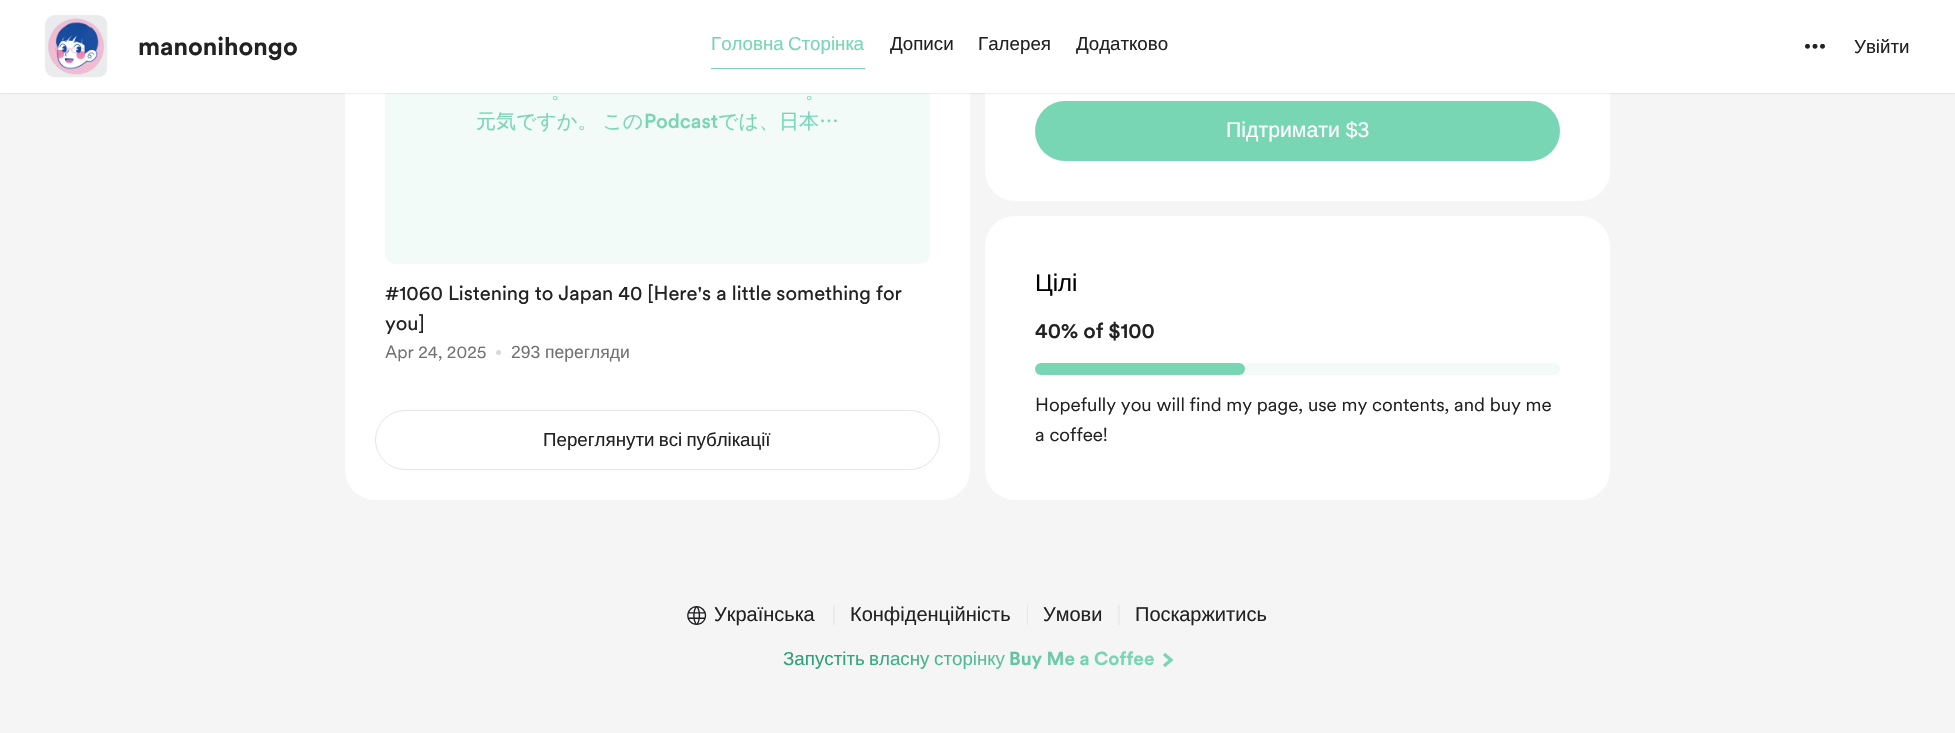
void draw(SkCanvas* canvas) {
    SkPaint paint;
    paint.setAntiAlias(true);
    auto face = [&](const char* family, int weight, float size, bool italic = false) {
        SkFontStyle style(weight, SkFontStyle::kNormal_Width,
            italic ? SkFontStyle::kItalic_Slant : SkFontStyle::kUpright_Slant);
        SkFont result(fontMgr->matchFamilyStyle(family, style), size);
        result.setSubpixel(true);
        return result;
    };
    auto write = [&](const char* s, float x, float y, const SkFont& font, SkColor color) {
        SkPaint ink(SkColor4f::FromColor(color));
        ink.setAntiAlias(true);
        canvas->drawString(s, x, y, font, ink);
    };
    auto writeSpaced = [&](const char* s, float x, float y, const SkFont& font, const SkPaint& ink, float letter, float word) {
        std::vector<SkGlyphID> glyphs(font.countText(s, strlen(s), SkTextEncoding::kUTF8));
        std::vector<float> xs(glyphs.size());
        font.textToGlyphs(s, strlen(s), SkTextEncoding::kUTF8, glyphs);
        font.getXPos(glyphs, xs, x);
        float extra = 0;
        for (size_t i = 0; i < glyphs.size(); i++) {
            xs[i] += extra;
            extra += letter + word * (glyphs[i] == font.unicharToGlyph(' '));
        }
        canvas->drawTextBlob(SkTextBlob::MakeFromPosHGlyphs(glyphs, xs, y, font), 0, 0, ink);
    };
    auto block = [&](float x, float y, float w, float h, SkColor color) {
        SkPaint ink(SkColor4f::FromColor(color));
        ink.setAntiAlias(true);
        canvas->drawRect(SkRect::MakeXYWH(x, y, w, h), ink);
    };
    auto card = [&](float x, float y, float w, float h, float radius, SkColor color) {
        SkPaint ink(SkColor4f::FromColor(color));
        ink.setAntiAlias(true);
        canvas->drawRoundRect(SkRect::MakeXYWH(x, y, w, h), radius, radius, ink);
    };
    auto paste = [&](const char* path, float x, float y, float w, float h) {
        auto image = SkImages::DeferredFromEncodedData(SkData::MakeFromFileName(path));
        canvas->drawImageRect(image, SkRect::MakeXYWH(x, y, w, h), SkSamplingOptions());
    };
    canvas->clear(SkColorSetRGB(245, 245, 245));
    card(345, -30, 625, 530, 30, SK_ColorWHITE);
    card(385, -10, 545, 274, 10, SkColorSetRGB(242, 251, 248));
    card(985, -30, 625, 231, 30, SK_ColorWHITE);
    paint.setColor(SkColorSetARGB(15, 0, 0, 0));
    paint.setMaskFilter(SkMaskFilter::MakeBlur(kNormal_SkBlurStyle, 0.5f));
    canvas->drawRect(SkRect::MakeXYWH(0, 1, 1955, 93), paint);
    paint.setMaskFilter(nullptr);
    block(0, 0, 1955, 93, SK_ColorWHITE);
    paste("pic1.png", 45, 15, 63, 63);
    paste("pic2.png", 48, 18, 56, 57);
    auto kFont1 = face("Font", 700, 25);
    write("manonihongo", 138, 55, kFont1, SkColorSetRGB(34, 34, 34));
    auto kFont2 = face("Liberation Sans", 400, 18.75f);
    paint.setColor(SkColorSetRGB(121, 214, 181));
    writeSpaced("Головна Сторінка", 711, 50, kFont2, paint, 0, -1);
    block(711, 68, 154, 1, SkColorSetRGB(121, 214, 181));
    write("Дописи", 890, 50, kFont2, SkColorSetRGB(34, 34, 34));
    write("Галерея", 978, 50, kFont2, SkColorSetRGB(34, 34, 34));
    write("Додатково", 1076, 50, kFont2, SkColorSetRGB(34, 34, 34));
    paste("pic3.png", 1805, 44, 20, 5);
    write("Увійти", 1854, 53, kFont2, SkColorSetRGB(34, 34, 34));
    auto kFont3 = face("WenQuanYi Zen Hei", 500, 20);
    write("。", 551, 98, kFont3, SkColorSetRGB(121, 214, 181));
    write("。", 805, 98, kFont3, SkColorSetRGB(121, 214, 181));
    writeSpaced("元気ですか。 この", 476, 128, kFont3, paint, 0, -1);
    auto kFont4 = face("Font", 500, 20);
    write("Podcast", 644, 128, kFont4, SkColorSetRGB(121, 214, 181));
    write("では、日本…", 718, 128, kFont3, SkColorSetRGB(121, 214, 181));
    auto kFont5 = face("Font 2", 400, 20);
    write("#1060 Listening to Japan 40 [Here's a little something for", 385, 300, kFont5, SkColorSetRGB(34, 34, 34));
    write("you]", 385, 330, kFont5, SkColorSetRGB(34, 34, 34));
    auto kFont6 = face("Font", 400, 17.5f);
    write("Apr 24, 2025", 385, 358, kFont6, SkColorSetRGB(113, 113, 113));
    paint.setColor(SkColorSetRGB(217, 217, 217));
    canvas->drawCircle(498.5f, 352.5f, 2.5f, paint);
    auto kFont7 = face("Liberation Sans", 400, 17.5f);
    write("293 перегляди", 511, 358, kFont7, SkColorSetRGB(113, 113, 113));
    paint.setStyle(SkPaint::kStroke_Style);
    paint.setStrokeWidth(1);
    paint.setColor(SkColorSetRGB(229, 229, 229));
    canvas->drawRoundRect(SkRect::MakeXYWH(375.5f, 410.5f, 564, 59), 29.5f, 29.5f, paint);
    paint.setStyle(SkPaint::kFill_Style);
    paint.setColor(SkColorSetRGB(34, 34, 34));
    writeSpaced("Переглянути всі публікації", 543, 446, kFont2, paint, 0, -1);
    card(1035, 101, 525, 60, 30, SkColorSetRGB(121, 214, 181));
    auto kFont8 = face("Liberation Sans", 400, 21.25f);
    write("Підтримати $3", 1226, 137, kFont8, SK_ColorWHITE);
    card(985, 216, 625, 284, 30, SK_ColorWHITE);
    auto kFont9 = face("Liberation Sans", 400, 24);
    write("Цілі", 1035, 291, kFont9, SK_ColorBLACK);
    auto kFont10 = face("Font", 500, 21.25f);
    write("40% of $100", 1035, 338, kFont10, SkColorSetRGB(34, 34, 34));
    card(1035, 363, 525, 12, 6, SkColorSetRGB(242, 251, 248));
    card(1035, 363, 210, 12, 6, SkColorSetRGB(121, 214, 181));
    auto kFont11 = face("Font", 400, 18.75f);
    write("Hopefully you will find my page, use my contents, and buy me", 1035, 411, kFont11, SkColorSetRGB(34, 34, 34));
    write("a coffee!", 1035, 441, kFont11, SkColorSetRGB(34, 34, 34));
    paste("pic4.png", 687, 606, 20, 19);
    auto kFont12 = face("Liberation Sans", 400, 20);
    write("Українська", 714, 621, kFont12, SkColorSetRGB(34, 34, 34));
    paint.setStyle(SkPaint::kStroke_Style);
    paint.setStrokeWidth(1.2f);
    paint.setColor(SkColorSetRGB(231, 231, 231));
    canvas->drawPath(SkPathBuilder().moveTo(834, 605).lineTo(834, 625).detach(), paint);
    write("Конфіденційність", 850, 621, kFont12, SkColorSetRGB(34, 34, 34));
    block(1027, 605, 1, 20, SkColorSetRGB(231, 231, 231));
    write("Умови", 1043, 621, kFont12, SkColorSetRGB(34, 34, 34));
    canvas->drawPath(SkPathBuilder().moveTo(1119, 605).lineTo(1119, 625).detach(), paint);
    write("Поскаржитись", 1135, 621, kFont12, SkColorSetRGB(34, 34, 34));
    paint.setStyle(SkPaint::kFill_Style);
    {
        const SkColor colors[] = {SkColorSetRGB(49, 159, 120), SkColorSetRGB(121, 214, 181)};
        const float stops[] = {0.14f, 0.82f};
        const SkPoint ends[] = {{807, 587}, {1148, 731}};
        paint.setShader(SkGradientShader::MakeLinear(ends, colors, stops, 2, SkTileMode::kClamp));
        paint.setAlpha(255);
    }
    canvas->drawString("Запустіть", 783, 665, kFont2, paint);
    canvas->drawString("власну", 869, 665, kFont2, paint);
    canvas->drawString("сторінку", 934, 665, kFont2, paint);
    auto kFont13 = face("Font", 700, 18.75f);
    canvas->drawString("Buy Me a Coffee", 1009, 665, kFont13, paint);
    paint.setStyle(SkPaint::kStroke_Style);
    paint.setStrokeWidth(3.3f);
    paint.setShader(nullptr);
    paint.setColor(SkColorSetRGB(121, 214, 181));
    canvas->drawPath(SkPathBuilder().moveTo(1164, 654).lineTo(1171, 660).lineTo(1164, 666).detach(), paint);
}
